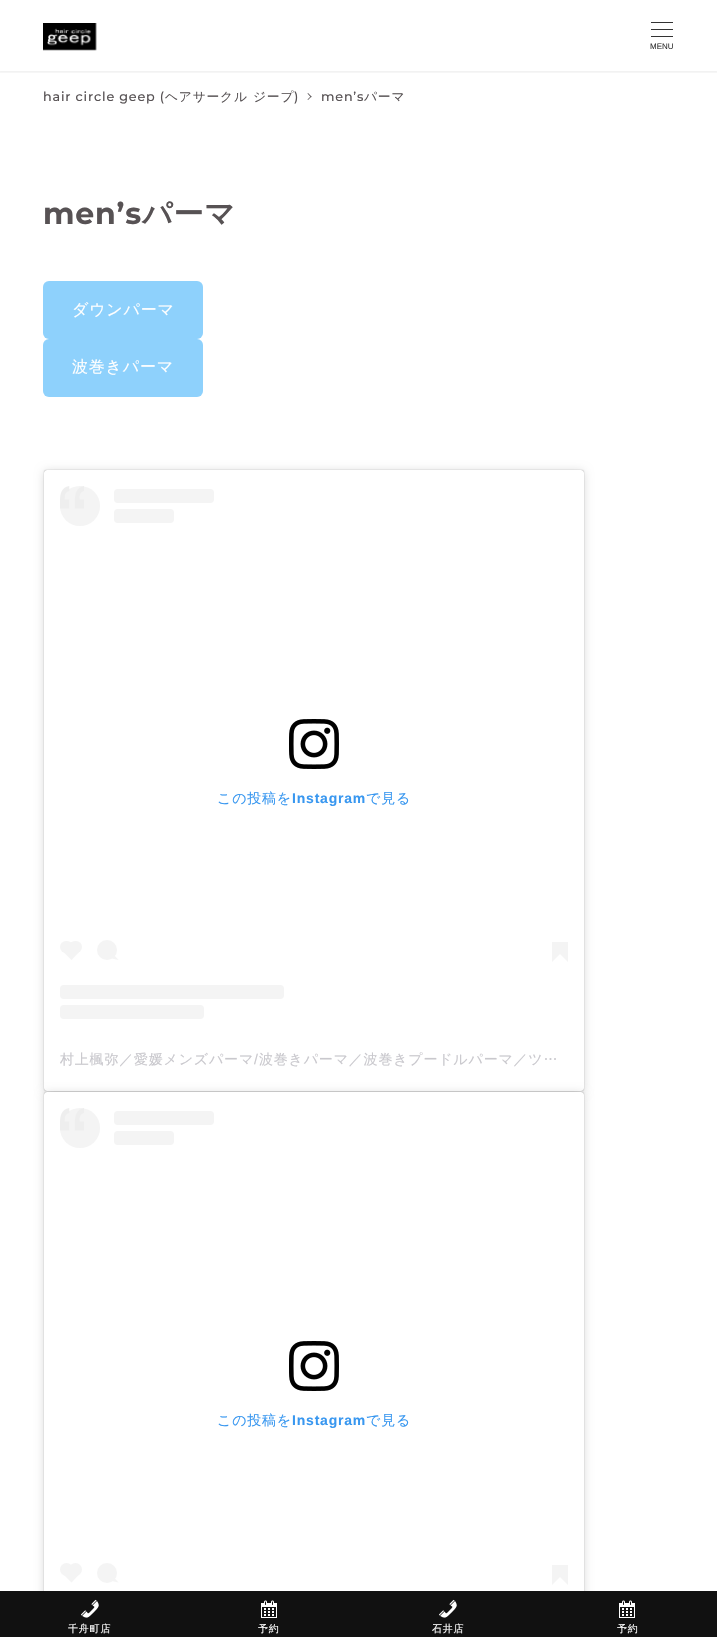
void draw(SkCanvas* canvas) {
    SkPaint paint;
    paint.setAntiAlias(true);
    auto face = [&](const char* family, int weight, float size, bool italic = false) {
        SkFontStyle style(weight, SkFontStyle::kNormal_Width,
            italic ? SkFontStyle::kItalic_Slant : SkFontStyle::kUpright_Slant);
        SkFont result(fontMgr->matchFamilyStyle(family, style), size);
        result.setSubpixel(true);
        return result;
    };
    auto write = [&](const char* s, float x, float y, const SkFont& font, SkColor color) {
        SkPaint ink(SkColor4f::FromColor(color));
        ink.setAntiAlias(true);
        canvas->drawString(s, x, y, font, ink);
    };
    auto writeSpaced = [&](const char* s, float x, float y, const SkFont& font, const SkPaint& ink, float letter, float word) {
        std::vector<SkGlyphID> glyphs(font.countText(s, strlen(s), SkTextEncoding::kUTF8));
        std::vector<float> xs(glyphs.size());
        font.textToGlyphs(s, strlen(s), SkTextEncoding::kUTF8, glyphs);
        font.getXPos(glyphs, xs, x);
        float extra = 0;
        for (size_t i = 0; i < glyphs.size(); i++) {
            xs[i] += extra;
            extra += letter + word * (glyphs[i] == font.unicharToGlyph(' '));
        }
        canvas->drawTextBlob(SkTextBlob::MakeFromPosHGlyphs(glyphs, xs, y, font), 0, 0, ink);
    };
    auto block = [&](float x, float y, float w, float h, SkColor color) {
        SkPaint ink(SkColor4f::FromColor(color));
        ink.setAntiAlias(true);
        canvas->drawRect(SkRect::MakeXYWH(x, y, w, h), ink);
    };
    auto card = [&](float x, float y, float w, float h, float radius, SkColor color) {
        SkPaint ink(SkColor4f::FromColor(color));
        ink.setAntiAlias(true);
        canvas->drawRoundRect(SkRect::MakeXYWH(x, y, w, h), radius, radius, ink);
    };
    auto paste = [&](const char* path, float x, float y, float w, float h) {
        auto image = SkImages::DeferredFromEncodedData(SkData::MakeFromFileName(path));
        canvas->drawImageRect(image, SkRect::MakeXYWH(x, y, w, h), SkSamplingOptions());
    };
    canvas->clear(SK_ColorWHITE);
    canvas->save();
    canvas->clipRect(SkRect::MakeXYWH(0, 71, 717, 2));
    paint.setColor(SkColorSetARGB(13, 0, 0, 0));
    paint.setMaskFilter(SkMaskFilter::MakeBlur(kNormal_SkBlurStyle, 1));
    canvas->drawRect(SkRect::MakeXYWH(-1, 0, 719, 73), paint);
    paint.setMaskFilter(nullptr);
    canvas->restore();
    paste("pic1.png", 43, 23, 54, 28);
    block(651, 22, 22, 1, SkColorSetRGB(51, 51, 51));
    block(651, 29, 22, 1, SkColorSetRGB(51, 51, 51));
    block(651, 36, 22, 1, SkColorSetRGB(51, 51, 51));
    auto kFont1 = face("Liberation Sans", 400, 8);
    write("MENU", 650, 49, kFont1, SkColorSetRGB(51, 51, 51));
    auto kFont2 = face("Montserrat", 500, 12.75f);
    paint.setColor(SkColorSetRGB(87, 82, 84));
    writeSpaced("hair circle geep (", 43, 101, kFont2, paint, 0.8f, 0);
    auto kFont3 = face("WenQuanYi Zen Hei", 500, 12.75f);
    writeSpaced("ヘアサークル", 165, 101, kFont3, paint, 0.8f, 0);
    writeSpaced("ジープ", 253, 101, kFont3, paint, 0.8f, 0);
    writeSpaced(")", 294, 101, kFont2, paint, 0.8f, 0);
    canvas->drawPath(SkPathBuilder().moveTo(308, 93).lineTo(311.5f, 96.5f).lineTo(311, 97.5f).lineTo(307.5f, 93.5f).close().detach(), paint);
    canvas->drawPath(SkPathBuilder().moveTo(311, 96).lineTo(311.5f, 96.5f).lineTo(308, 100).lineTo(307.5f, 99.5f).close().detach(), paint);
    writeSpaced("men’s", 321, 101, kFont2, paint, 0.8f, 0);
    writeSpaced("パーマ", 364, 101, kFont3, paint, 0.8f, 0);
    auto kFont4 = face("Montserrat", 700, 30);
    writeSpaced("men’s", 43, 224, kFont4, paint, 0.8f, 0);
    auto kFont5 = face("WenQuanYi Zen Hei", 700, 30);
    writeSpaced("パーマ", 142, 224, kFont5, paint, 0.8f, 0);
    card(43, 281, 160, 58, 6, SkColorSetRGB(142, 209, 252));
    auto kFont6 = face("WenQuanYi Zen Hei", 500, 16);
    paint.setColor(SK_ColorWHITE);
    writeSpaced("ダウンパーマ", 72, 315, kFont6, paint, 0.8f, 0);
    card(43, 339, 160, 58, 6, SkColorSetRGB(142, 209, 252));
    writeSpaced("波巻きパーマ", 72, 372, kFont6, paint, 0.8f, 0);
    paint.setColor(SkColorSetARGB(38, 0, 0, 0));
    paint.setMaskFilter(SkMaskFilter::MakeBlur(kNormal_SkBlurStyle, 5));
    canvas->drawRoundRect(SkRect::MakeXYWH(44, 471, 540, 621), 3, 3, paint);
    paint.setMaskFilter(nullptr);
    paint.setColor(SkColorSetARGB(128, 0, 0, 0));
    paint.setMaskFilter(SkMaskFilter::MakeBlur(kNormal_SkBlurStyle, 0.5f));
    canvas->drawRoundRect(SkRect::MakeXYWH(44, 470, 540, 621), 3, 3, paint);
    paint.setMaskFilter(nullptr);
    card(44, 470, 540, 621, 3, SK_ColorWHITE);
    paint.setColor(SkColorSetRGB(244, 244, 244));
    canvas->drawCircle(80, 506, 20, paint);
    paste("pic2.png", 60, 486, 24, 23);
    card(114, 489, 100, 14, 4, SkColorSetRGB(244, 244, 244));
    card(114, 509, 60, 14, 4, SkColorSetRGB(244, 244, 244));
    paste("pic3.png", 289, 719, 50, 50);
    auto kFont7 = face("WenQuanYi Zen Hei", 500, 14);
    paint.setColor(SkColorSetRGB(56, 151, 240));
    writeSpaced("この投稿を", 217, 803, kFont7, paint, 0.8f, 0);
    auto kFont8 = face("Liberation Sans", 700, 14);
    writeSpaced("Instagram", 292, 803, kFont8, paint, 0.8f, 0);
    writeSpaced("で見る", 366, 803, kFont7, paint, 0.8f, 0);
    card(60, 941, 13, 12, 6, SkColorSetRGB(244, 244, 244));
    paint.setColor(SkColorSetRGB(244, 244, 244));
    canvas->drawPath(SkPathBuilder().moveTo(62.5f, 951).lineTo(71.5f, 942).lineTo(80, 951).lineTo(71.5f, 960).close().detach(), paint);
    card(69, 941, 13, 12, 6, SkColorSetRGB(244, 244, 244));
    canvas->drawCircle(107, 950, 10, paint);
    canvas->drawPath(SkPathBuilder().moveTo(112, 958.5f).lineTo(114, 955).lineTo(118.5f, 960).close().detach(), paint);
    block(552, 942, 16, 12, SkColorSetRGB(244, 244, 244));
    canvas->drawPath(SkPathBuilder().moveTo(552, 954).lineTo(560, 954).lineTo(552, 962).close().detach(), paint);
    canvas->drawPath(SkPathBuilder().moveTo(560, 954).lineTo(568, 954).lineTo(568, 962).close().detach(), paint);
    card(60, 985, 224, 14, 4, SkColorSetRGB(244, 244, 244));
    card(60, 1005, 144, 14, 4, SkColorSetRGB(244, 244, 244));
    paint.setColor(SkColorSetRGB(201, 200, 205));
    writeSpaced("村上楓弥／愛媛メンズパーマ", 60, 1064, kFont7, paint, 0.8f, 0);
    auto kFont9 = face("Liberation Sans", 400, 14);
    writeSpaced("/", 254, 1064, kFont9, paint, 0.8f, 0);
    writeSpaced("波巻きパーマ／波巻きプードルパーマ／ツ…", 259, 1064, kFont7, paint, 0.8f, 0);
    paint.setColor(SkColorSetARGB(38, 0, 0, 0));
    paint.setMaskFilter(SkMaskFilter::MakeBlur(kNormal_SkBlurStyle, 5));
    canvas->drawRoundRect(SkRect::MakeXYWH(44, 1093, 540, 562), 3, 3, paint);
    paint.setMaskFilter(nullptr);
    paint.setColor(SkColorSetARGB(128, 0, 0, 0));
    paint.setMaskFilter(SkMaskFilter::MakeBlur(kNormal_SkBlurStyle, 0.5f));
    canvas->drawRoundRect(SkRect::MakeXYWH(44, 1092, 540, 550), 3, 3, paint);
    paint.setMaskFilter(nullptr);
    card(44, 1092, 540, 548, 3, SK_ColorWHITE);
    paint.setColor(SkColorSetRGB(244, 244, 244));
    canvas->drawCircle(80, 1128, 20, paint);
    paste("pic2.png", 60, 1108, 24, 23);
    card(114, 1111, 100, 14, 4, SkColorSetRGB(244, 244, 244));
    card(114, 1131, 60, 14, 4, SkColorSetRGB(244, 244, 244));
    paste("pic3.png", 289, 1341, 50, 50);
    paint.setColor(SkColorSetRGB(56, 151, 240));
    writeSpaced("この投稿を", 217, 1425, kFont7, paint, 0.8f, 0);
    writeSpaced("Instagram", 292, 1425, kFont8, paint, 0.8f, 0);
    writeSpaced("で見る", 366, 1425, kFont7, paint, 0.8f, 0);
    paint.setColor(SkColorSetRGB(244, 244, 244));
    canvas->drawCircle(66.5f, 1569.5f, 6.5f, paint);
    canvas->drawPath(SkPathBuilder().moveTo(62.5f, 1573.5f).lineTo(71.5f, 1564.5f).lineTo(80, 1573.5f).lineTo(71.5f, 1582.5f).close().detach(), paint);
    canvas->drawCircle(75.5f, 1569.5f, 6.5f, paint);
    canvas->drawCircle(107, 1573, 10, paint);
    canvas->drawPath(SkPathBuilder().moveTo(112, 1581).lineTo(114, 1577.5f).lineTo(118.5f, 1582.5f).close().detach(), paint);
    block(552, 1565, 16, 12, SkColorSetRGB(244, 244, 244));
    canvas->drawPath(SkPathBuilder().moveTo(552, 1577).lineTo(560, 1577).lineTo(552, 1585).close().detach(), paint);
    canvas->drawPath(SkPathBuilder().moveTo(560, 1577).lineTo(568, 1577).lineTo(568, 1585).close().detach(), paint);
    block(0, 1591, 717, 46, SkColorSetRGB(17, 17, 17));
    paste("pic4.png", 81, 1599, 18, 19);
    auto kFont10 = face("WenQuanYi Zen Hei", 500, 10);
    paint.setColor(SK_ColorWHITE);
    writeSpaced("千舟町店", 68, 1632, kFont10, paint, 0.8f, 0);
    paste("pic5.png", 261, 1600, 16, 18);
    writeSpaced("予約", 258, 1632, kFont10, paint, 0.8f, 0);
    paste("pic4.png", 439, 1599, 18, 19);
    writeSpaced("石井店", 432, 1632, kFont10, paint, 0.8f, 0);
    paste("pic5.png", 619, 1600, 16, 18);
    writeSpaced("予約", 617, 1632, kFont10, paint, 0.8f, 0);
}
